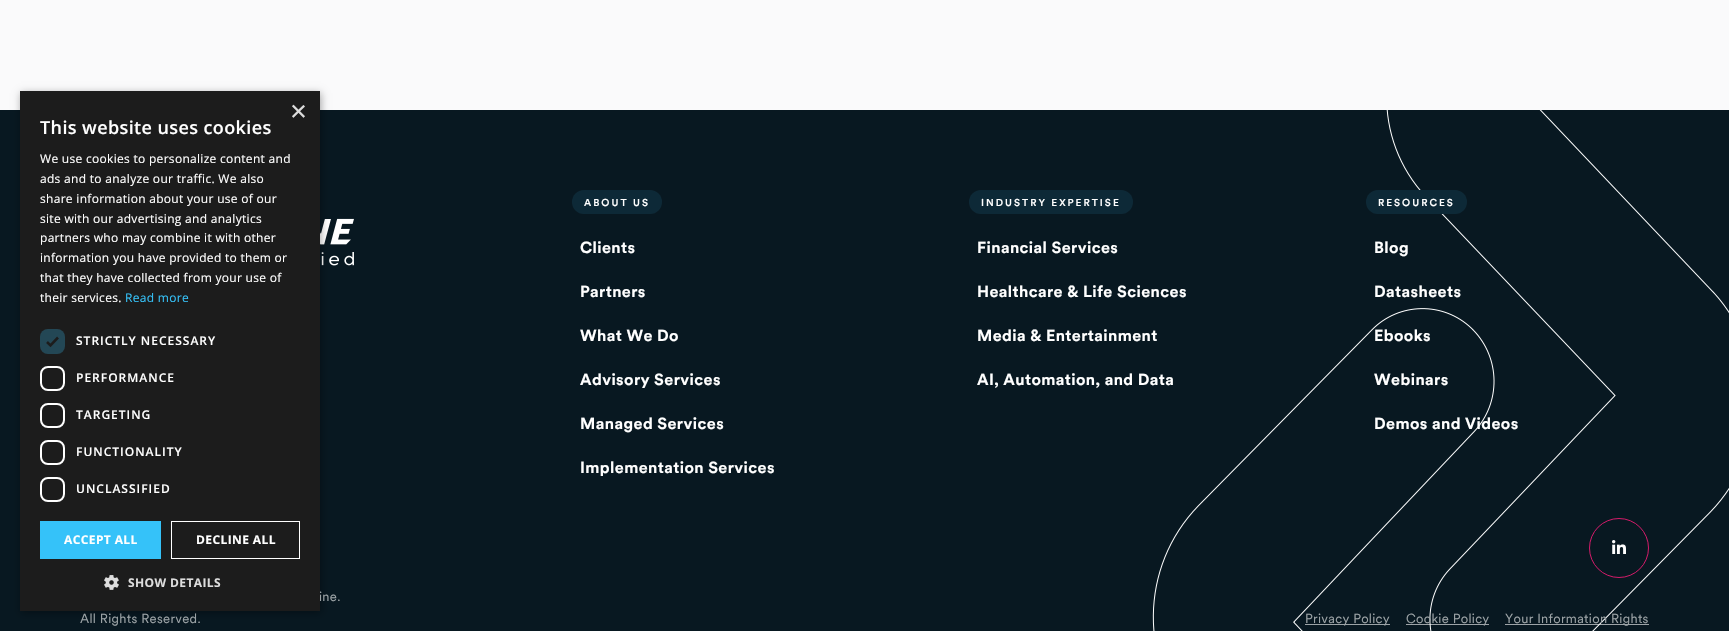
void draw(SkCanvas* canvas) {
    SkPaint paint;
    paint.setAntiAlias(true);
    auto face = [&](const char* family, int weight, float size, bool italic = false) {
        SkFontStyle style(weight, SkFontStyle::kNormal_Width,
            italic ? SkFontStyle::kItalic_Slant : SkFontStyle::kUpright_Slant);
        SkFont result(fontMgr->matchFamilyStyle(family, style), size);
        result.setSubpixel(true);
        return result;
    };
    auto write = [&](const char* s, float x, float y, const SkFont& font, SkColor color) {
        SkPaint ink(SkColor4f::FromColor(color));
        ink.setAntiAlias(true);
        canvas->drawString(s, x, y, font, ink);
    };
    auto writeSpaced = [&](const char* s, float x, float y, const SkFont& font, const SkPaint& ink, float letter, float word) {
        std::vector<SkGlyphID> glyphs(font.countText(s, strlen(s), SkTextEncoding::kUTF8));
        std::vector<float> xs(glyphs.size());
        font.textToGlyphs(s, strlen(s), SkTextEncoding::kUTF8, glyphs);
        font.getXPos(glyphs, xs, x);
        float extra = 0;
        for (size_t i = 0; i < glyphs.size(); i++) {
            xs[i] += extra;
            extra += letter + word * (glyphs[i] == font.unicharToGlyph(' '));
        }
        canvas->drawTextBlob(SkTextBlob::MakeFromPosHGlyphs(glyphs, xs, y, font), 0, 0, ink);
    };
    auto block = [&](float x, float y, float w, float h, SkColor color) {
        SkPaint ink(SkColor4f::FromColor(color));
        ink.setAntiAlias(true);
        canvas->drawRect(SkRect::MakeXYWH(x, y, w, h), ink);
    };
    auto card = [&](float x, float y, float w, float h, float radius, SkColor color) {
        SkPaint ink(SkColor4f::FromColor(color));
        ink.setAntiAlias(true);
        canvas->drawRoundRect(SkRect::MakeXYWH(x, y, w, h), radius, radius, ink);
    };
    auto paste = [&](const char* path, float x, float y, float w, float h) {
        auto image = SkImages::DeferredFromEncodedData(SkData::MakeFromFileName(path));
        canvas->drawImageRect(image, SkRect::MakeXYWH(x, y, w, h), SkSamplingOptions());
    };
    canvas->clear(SkColorSetRGB(250, 250, 251));
    block(0, 110, 1729, 521, SkColorSetRGB(8, 24, 33));
    paste("pic3.png", 320, 218, 34, 48);
    paint.setColor(SkColorSetARGB(89, 0, 0, 0));
    paint.setMaskFilter(SkMaskFilter::MakeBlur(kNormal_SkBlurStyle, 4));
    canvas->drawRect(SkRect::MakeXYWH(21, 93, 300, 520), paint);
    paint.setMaskFilter(nullptr);
    auto kFont1 = face("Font", 400, 13);
    paint.setColor(SkColorSetRGB(156, 163, 166));
    writeSpaced("ine.", 319, 601, kFont1, paint, 0.3f, 0);
    block(20, 91, 300, 520, SkColorSetRGB(28, 28, 28));
    auto kFont2 = face("Liberation Sans", 400, 29);
    write("×", 290, 121, kFont2, SkColorSetRGB(221, 221, 221));
    auto kFont3 = face("Open Sans", 600, 18);
    paint.setColor(SK_ColorWHITE);
    writeSpaced("This website uses cookies", 40, 134, kFont3, paint, 0.4f, 0);
    auto kFont4 = face("Open Sans", 400, 12);
    writeSpaced("We use cookies to personalize content and", 40, 163, kFont4, paint, 0.3f, 0);
    writeSpaced("ads and to analyze our traffic. We also", 40, 183, kFont4, paint, 0.3f, 0);
    writeSpaced("share information about your use of our", 40, 203, kFont4, paint, 0.3f, 0);
    writeSpaced("site with our advertising and analytics", 40, 223, kFont4, paint, 0.3f, 0);
    writeSpaced("partners who may combine it with other", 40, 242, kFont4, paint, 0.3f, 0);
    writeSpaced("information you have provided to them or", 40, 262, kFont4, paint, 0.3f, 0);
    writeSpaced("that they have collected from your use of", 40, 282, kFont4, paint, 0.3f, 0);
    writeSpaced("their services.", 40, 302, kFont4, paint, 0.3f, 0);
    paint.setColor(SkColorSetRGB(53, 194, 249));
    writeSpaced("Read more", 125, 302, kFont4, paint, 0.3f, 0);
    card(40, 329, 25, 25, 8, SkColorSetRGB(35, 71, 85));
    paint.setStyle(SkPaint::kStroke_Style);
    paint.setStrokeWidth(2.6f);
    paint.setColor(SkColorSetRGB(28, 28, 28));
    canvas->drawPath(SkPathBuilder().moveTo(47, 342).lineTo(50.5f, 345.5f).lineTo(58, 337.5f).detach(), paint);
    auto kFont5 = face("Open Sans", 600, 12);
    paint.setStyle(SkPaint::kFill_Style);
    paint.setColor(SK_ColorWHITE);
    writeSpaced("STRICTLY NECESSARY", 76, 345, kFont5, paint, 1, 0);
    paint.setStyle(SkPaint::kStroke_Style);
    paint.setStrokeWidth(2);
    canvas->drawRoundRect(SkRect::MakeXYWH(41, 367, 23, 23), 7, 7, paint);
    paint.setStyle(SkPaint::kFill_Style);
    writeSpaced("PERFORMANCE", 76, 382, kFont5, paint, 1, 0);
    paint.setStyle(SkPaint::kStroke_Style);
    canvas->drawRoundRect(SkRect::MakeXYWH(41, 404, 23, 23), 7, 7, paint);
    paint.setStyle(SkPaint::kFill_Style);
    writeSpaced("TARGETING", 76, 419, kFont5, paint, 1, 0);
    paint.setStyle(SkPaint::kStroke_Style);
    canvas->drawRoundRect(SkRect::MakeXYWH(41, 441, 23, 23), 7, 7, paint);
    paint.setStyle(SkPaint::kFill_Style);
    writeSpaced("FUNCTIONALITY", 76, 456, kFont5, paint, 1, 0);
    paint.setStyle(SkPaint::kStroke_Style);
    canvas->drawRoundRect(SkRect::MakeXYWH(41, 478, 23, 23), 7, 7, paint);
    paint.setStyle(SkPaint::kFill_Style);
    writeSpaced("UNCLASSIFIED", 76, 493, kFont5, paint, 1, 0);
    block(40, 521, 121, 38, SkColorSetRGB(53, 194, 249));
    auto kFont6 = face("Open Sans", 700, 12);
    writeSpaced("ACCEPT ALL", 64, 544, kFont6, paint, 0.4f, 0);
    paint.setStyle(SkPaint::kStroke_Style);
    paint.setStrokeWidth(1);
    canvas->drawRect(SkRect::MakeXYWH(171.5f, 521.5f, 128, 37), paint);
    paint.setStyle(SkPaint::kFill_Style);
    writeSpaced("DECLINE ALL", 196, 544, kFont6, paint, 0.4f, 0);
    paste("pic1.png", 104, 575, 15, 15);
    paint.setColor(SkColorSetRGB(221, 221, 221));
    writeSpaced("SHOW DETAILS", 128, 587, kFont6, paint, 0.4f, 0);
    paste("pic2.png", 1152, 110, 577, 521);
    card(572, 190, 90, 24, 12, SkColorSetRGB(13, 41, 55));
    auto kFont7 = face("Font", 500, 10);
    paint.setColor(SK_ColorWHITE);
    writeSpaced("ABOUT US", 584, 206, kFont7, paint, 2, 0);
    auto kFont8 = face("Font", 700, 16);
    writeSpaced("Clients", 580, 253, kFont8, paint, 0.4f, 0);
    writeSpaced("Partners", 580, 297, kFont8, paint, 0.4f, 0);
    writeSpaced("What We Do", 580, 341, kFont8, paint, 0.4f, 0);
    writeSpaced("Advisory Services", 580, 385, kFont8, paint, 0.4f, 0);
    writeSpaced("Managed Services", 580, 429, kFont8, paint, 0.4f, 0);
    writeSpaced("Implementation Services", 580, 473, kFont8, paint, 0.4f, 0);
    card(969, 190, 164, 24, 12, SkColorSetRGB(13, 41, 55));
    writeSpaced("INDUSTRY EXPERTISE", 981, 206, kFont7, paint, 2, 0);
    writeSpaced("Financial Services", 977, 253, kFont8, paint, 0.4f, 0);
    writeSpaced("Healthcare & Life Sciences", 977, 297, kFont8, paint, 0.4f, 0);
    writeSpaced("Media & Entertainment", 977, 341, kFont8, paint, 0.4f, 0);
    writeSpaced("AI, Automation, and Data", 977, 385, kFont8, paint, 0.4f, 0);
    card(1366, 190, 101, 24, 12, SkColorSetRGB(13, 41, 55));
    writeSpaced("RESOURCES", 1378, 206, kFont7, paint, 2, 0);
    writeSpaced("Blog", 1374, 253, kFont8, paint, 0.4f, 0);
    writeSpaced("Datasheets", 1374, 297, kFont8, paint, 0.4f, 0);
    writeSpaced("Ebooks", 1374, 341, kFont8, paint, 0.4f, 0);
    writeSpaced("Webinars", 1374, 385, kFont8, paint, 0.4f, 0);
    writeSpaced("Demos and Videos", 1374, 429, kFont8, paint, 0.4f, 0);
    paint.setStyle(SkPaint::kStroke_Style);
    paint.setColor(SkColorSetRGB(212, 26, 105));
    canvas->drawCircle(1619, 548, 29.5f, paint);
    paste("pic4.png", 1612, 540, 14, 14);
    paint.setStyle(SkPaint::kFill_Style);
    paint.setColor(SkColorSetRGB(156, 163, 166));
    writeSpaced("All Rights Reserved.", 80, 623, kFont1, paint, 0.3f, 0);
    block(1305, 624, 85, 1, SkColorSetRGB(156, 163, 166));
    writeSpaced("Privacy Policy", 1305, 623, kFont1, paint, 0.3f, 0);
    block(1406, 624, 83, 1, SkColorSetARGB(153, 255, 255, 255));
    writeSpaced("Cookie Policy", 1406, 623, kFont1, paint, 0.3f, 0);
    block(1505, 624, 144, 1, SkColorSetARGB(153, 255, 255, 255));
    writeSpaced("Your Information Rights", 1505, 623, kFont1, paint, 0.3f, 0);
}
